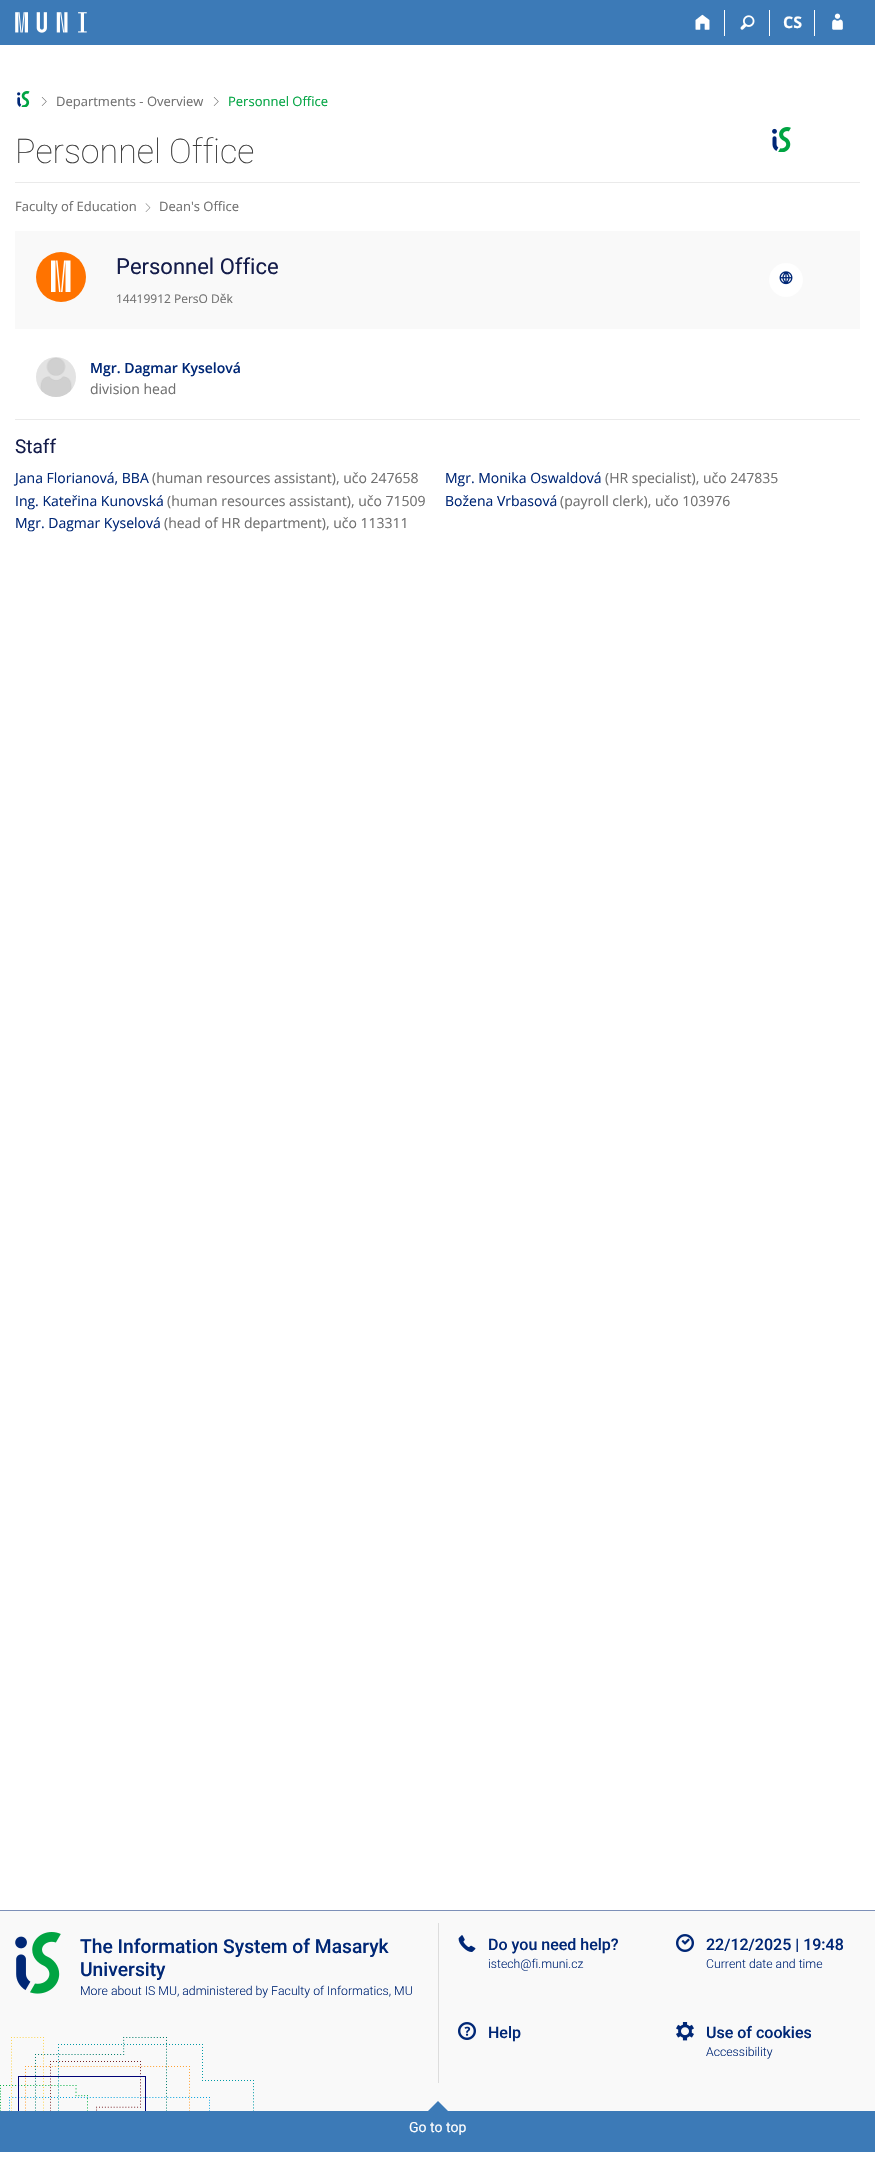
void draw(SkCanvas* canvas) {
    SkPaint paint;
    paint.setAntiAlias(true);
    auto face = [&](const char* family, int weight, float size, bool italic = false) {
        SkFontStyle style(weight, SkFontStyle::kNormal_Width,
            italic ? SkFontStyle::kItalic_Slant : SkFontStyle::kUpright_Slant);
        SkFont result(fontMgr->matchFamilyStyle(family, style), size);
        result.setSubpixel(true);
        return result;
    };
    auto write = [&](const char* s, float x, float y, const SkFont& font, SkColor color) {
        SkPaint ink(SkColor4f::FromColor(color));
        ink.setAntiAlias(true);
        canvas->drawString(s, x, y, font, ink);
    };
    auto block = [&](float x, float y, float w, float h, SkColor color) {
        SkPaint ink(SkColor4f::FromColor(color));
        ink.setAntiAlias(true);
        canvas->drawRect(SkRect::MakeXYWH(x, y, w, h), ink);
    };
    auto paste = [&](const char* path, float x, float y, float w, float h) {
        auto image = SkImages::DeferredFromEncodedData(SkData::MakeFromFileName(path));
        canvas->drawImageRect(image, SkRect::MakeXYWH(x, y, w, h), SkSamplingOptions());
    };
    canvas->clear(SK_ColorWHITE);
    block(0, 0, 875, 45, SkColorSetRGB(60, 122, 183));
    paste("pic1.png", 15, 12, 72, 21);
    block(724, 10, 1, 26, SK_ColorWHITE);
    paste("pic2.png", 695, 14, 15, 16);
    block(769, 10, 1, 26, SK_ColorWHITE);
    paste("pic3.png", 740, 15, 15, 15);
    block(814, 10, 1, 26, SK_ColorWHITE);
    auto kFont1 = face("Open Sans", 700, 16);
    write("CS", 783, 28, kFont1, SK_ColorWHITE);
    paste("pic4.png", 832, 13, 11, 17);
    paste("pic5.png", 17, 91, 13, 16);
    paste("pic6.png", 41, 97, 6, 9);
    auto kFont2 = face("Open Sans", 400, 13);
    write("Departments - Overview", 56, 106, kFont2, SkColorSetRGB(112, 112, 112));
    paste("pic6.png", 213, 97, 6, 9);
    write("Personnel Office", 228, 106, kFont2, SkColorSetRGB(0, 164, 66));
    auto kFont3 = face("Roboto", 100, 34);
    write("Personnel Office", 15, 163, kFont3, SkColorSetRGB(58, 58, 58));
    paste("pic7.png", 772, 127, 19, 25);
    block(15, 182, 845, 1, SkColorSetRGB(234, 234, 234));
    write("Faculty of Education", 15, 211, kFont2, SkColorSetRGB(112, 112, 112));
    paste("pic8.png", 145, 203, 6, 9);
    write("Dean's Office", 159, 211, kFont2, SkColorSetRGB(112, 112, 112));
    block(15, 231, 845, 98, SkColorSetRGB(249, 249, 249));
    paint.setColor(SkColorSetRGB(255, 115, 0));
    canvas->drawCircle(61, 277, 25, paint);
    paint.setColor(SK_ColorWHITE);
    canvas->drawPath(SkPathBuilder().moveTo(51, 260.5f).lineTo(55.5f, 260.5f).lineTo(55.5f, 292).lineTo(51, 292).close().moveTo(56, 260.5f).lineTo(57.5f, 260.5f).lineTo(60.5f, 292).lineTo(59, 292).close().moveTo(64, 260.5f).lineTo(65.5f, 260.5f).lineTo(62.5f, 292).lineTo(61, 292).close().moveTo(65.5f, 260.5f).lineTo(70.5f, 260.5f).lineTo(70.5f, 292).lineTo(65.5f, 292).close().detach(), paint);
    auto kFont4 = face("Roboto", 400, 22);
    write("Personnel Office", 116, 274, kFont4, SkColorSetRGB(20, 28, 74));
    auto kFont5 = face("Open Sans", 400, 12);
    write("14419912 PersO Děk", 116, 303, kFont5, SkColorSetRGB(112, 112, 112));
    canvas->drawCircle(786, 280, 17, paint);
    paste("pic9.png", 779, 271, 14, 14);
    paste("pic10.png", 36, 357, 40, 40);
    auto kFont6 = face("Open Sans", 600, 14);
    write("Mgr. Dagmar Kyselová", 90, 373, kFont6, SkColorSetRGB(0, 39, 118));
    auto kFont7 = face("Open Sans", 400, 14);
    write("division head", 90, 394, kFont7, SkColorSetRGB(112, 112, 112));
    block(15, 419, 845, 1, SkColorSetRGB(234, 234, 234));
    auto kFont8 = face("Roboto", 400, 19);
    write("Staff", 15, 453, kFont8, SkColorSetRGB(20, 28, 74));
    write("Jana Florianová, BBA", 15, 483, kFont7, SkColorSetRGB(0, 39, 118));
    write("(human resources assistant), učo 247658", 152, 483, kFont7, SkColorSetRGB(112, 112, 112));
    write("Mgr. Monika Oswaldová", 445, 483, kFont7, SkColorSetRGB(0, 39, 118));
    write("(HR specialist), učo 247835", 605, 483, kFont7, SkColorSetRGB(112, 112, 112));
    write("Ing. Kateřina Kunovská", 15, 506, kFont7, SkColorSetRGB(0, 39, 118));
    write("(human resources assistant), učo 71509", 167, 506, kFont7, SkColorSetRGB(112, 112, 112));
    write("Božena Vrbasová", 445, 506, kFont7, SkColorSetRGB(0, 39, 118));
    write("(payroll clerk), učo 103976", 560, 506, kFont7, SkColorSetRGB(112, 112, 112));
    write("Mgr. Dagmar Kyselová", 15, 528, kFont7, SkColorSetRGB(0, 39, 118));
    write("(head of HR department), učo 113311", 164, 528, kFont7, SkColorSetRGB(112, 112, 112));
    block(0, 1911, 875, 200, SkColorSetRGB(249, 249, 249));
    block(0, 1910, 875, 1, SkColorSetRGB(125, 144, 184));
    paste("pic11.png", 0, 2037, 254, 74);
    paste("pic12.png", 15, 1932, 46, 62);
    auto kFont9 = face("Roboto", 500, 19.25f);
    write("The Information System of Masaryk", 80, 1953, kFont9, SkColorSetRGB(0, 39, 118));
    write("University", 80, 1976, kFont9, SkColorSetRGB(0, 39, 118));
    auto kFont10 = face("Roboto", 300, 12.25f);
    write("More about IS MU, administered by Faculty of Informatics, MU", 80, 1995, kFont10, SkColorSetRGB(0, 39, 118));
    block(438, 1923, 1, 160, SkColorSetRGB(221, 221, 221));
    paste("pic13.png", 458, 1935, 18, 17);
    auto kFont11 = face("Roboto", 500, 16);
    write("Do you need help?", 488, 1950, kFont11, SkColorSetRGB(0, 39, 118));
    write("istech@fi.muni.cz", 488, 1968, kFont10, SkColorSetRGB(0, 39, 118));
    paste("pic14.png", 458, 2022, 18, 18);
    write("Help", 488, 2038, kFont11, SkColorSetRGB(0, 39, 118));
    paste("pic15.png", 676, 1934, 18, 18);
    write("22/12/2025 | 19:48", 706, 1950, kFont11, SkColorSetRGB(0, 39, 118));
    write("Current date and time", 706, 1968, kFont10, SkColorSetRGB(0, 39, 118));
    paste("pic16.png", 676, 2022, 18, 19);
    write("Use of cookies", 706, 2038, kFont11, SkColorSetRGB(0, 39, 118));
    write("Accessibility", 706, 2056, kFont10, SkColorSetRGB(0, 39, 118));
    block(0, 2111, 875, 41, SkColorSetRGB(60, 122, 183));
    paint.setColor(SkColorSetRGB(60, 122, 183));
    canvas->drawPath(SkPathBuilder().moveTo(449, 2112).lineTo(427, 2112).lineTo(438, 2101).close().detach(), paint);
    auto kFont12 = face("Roboto", 400, 14);
    write("Go to top", 409, 2132, kFont12, SK_ColorWHITE);
}
